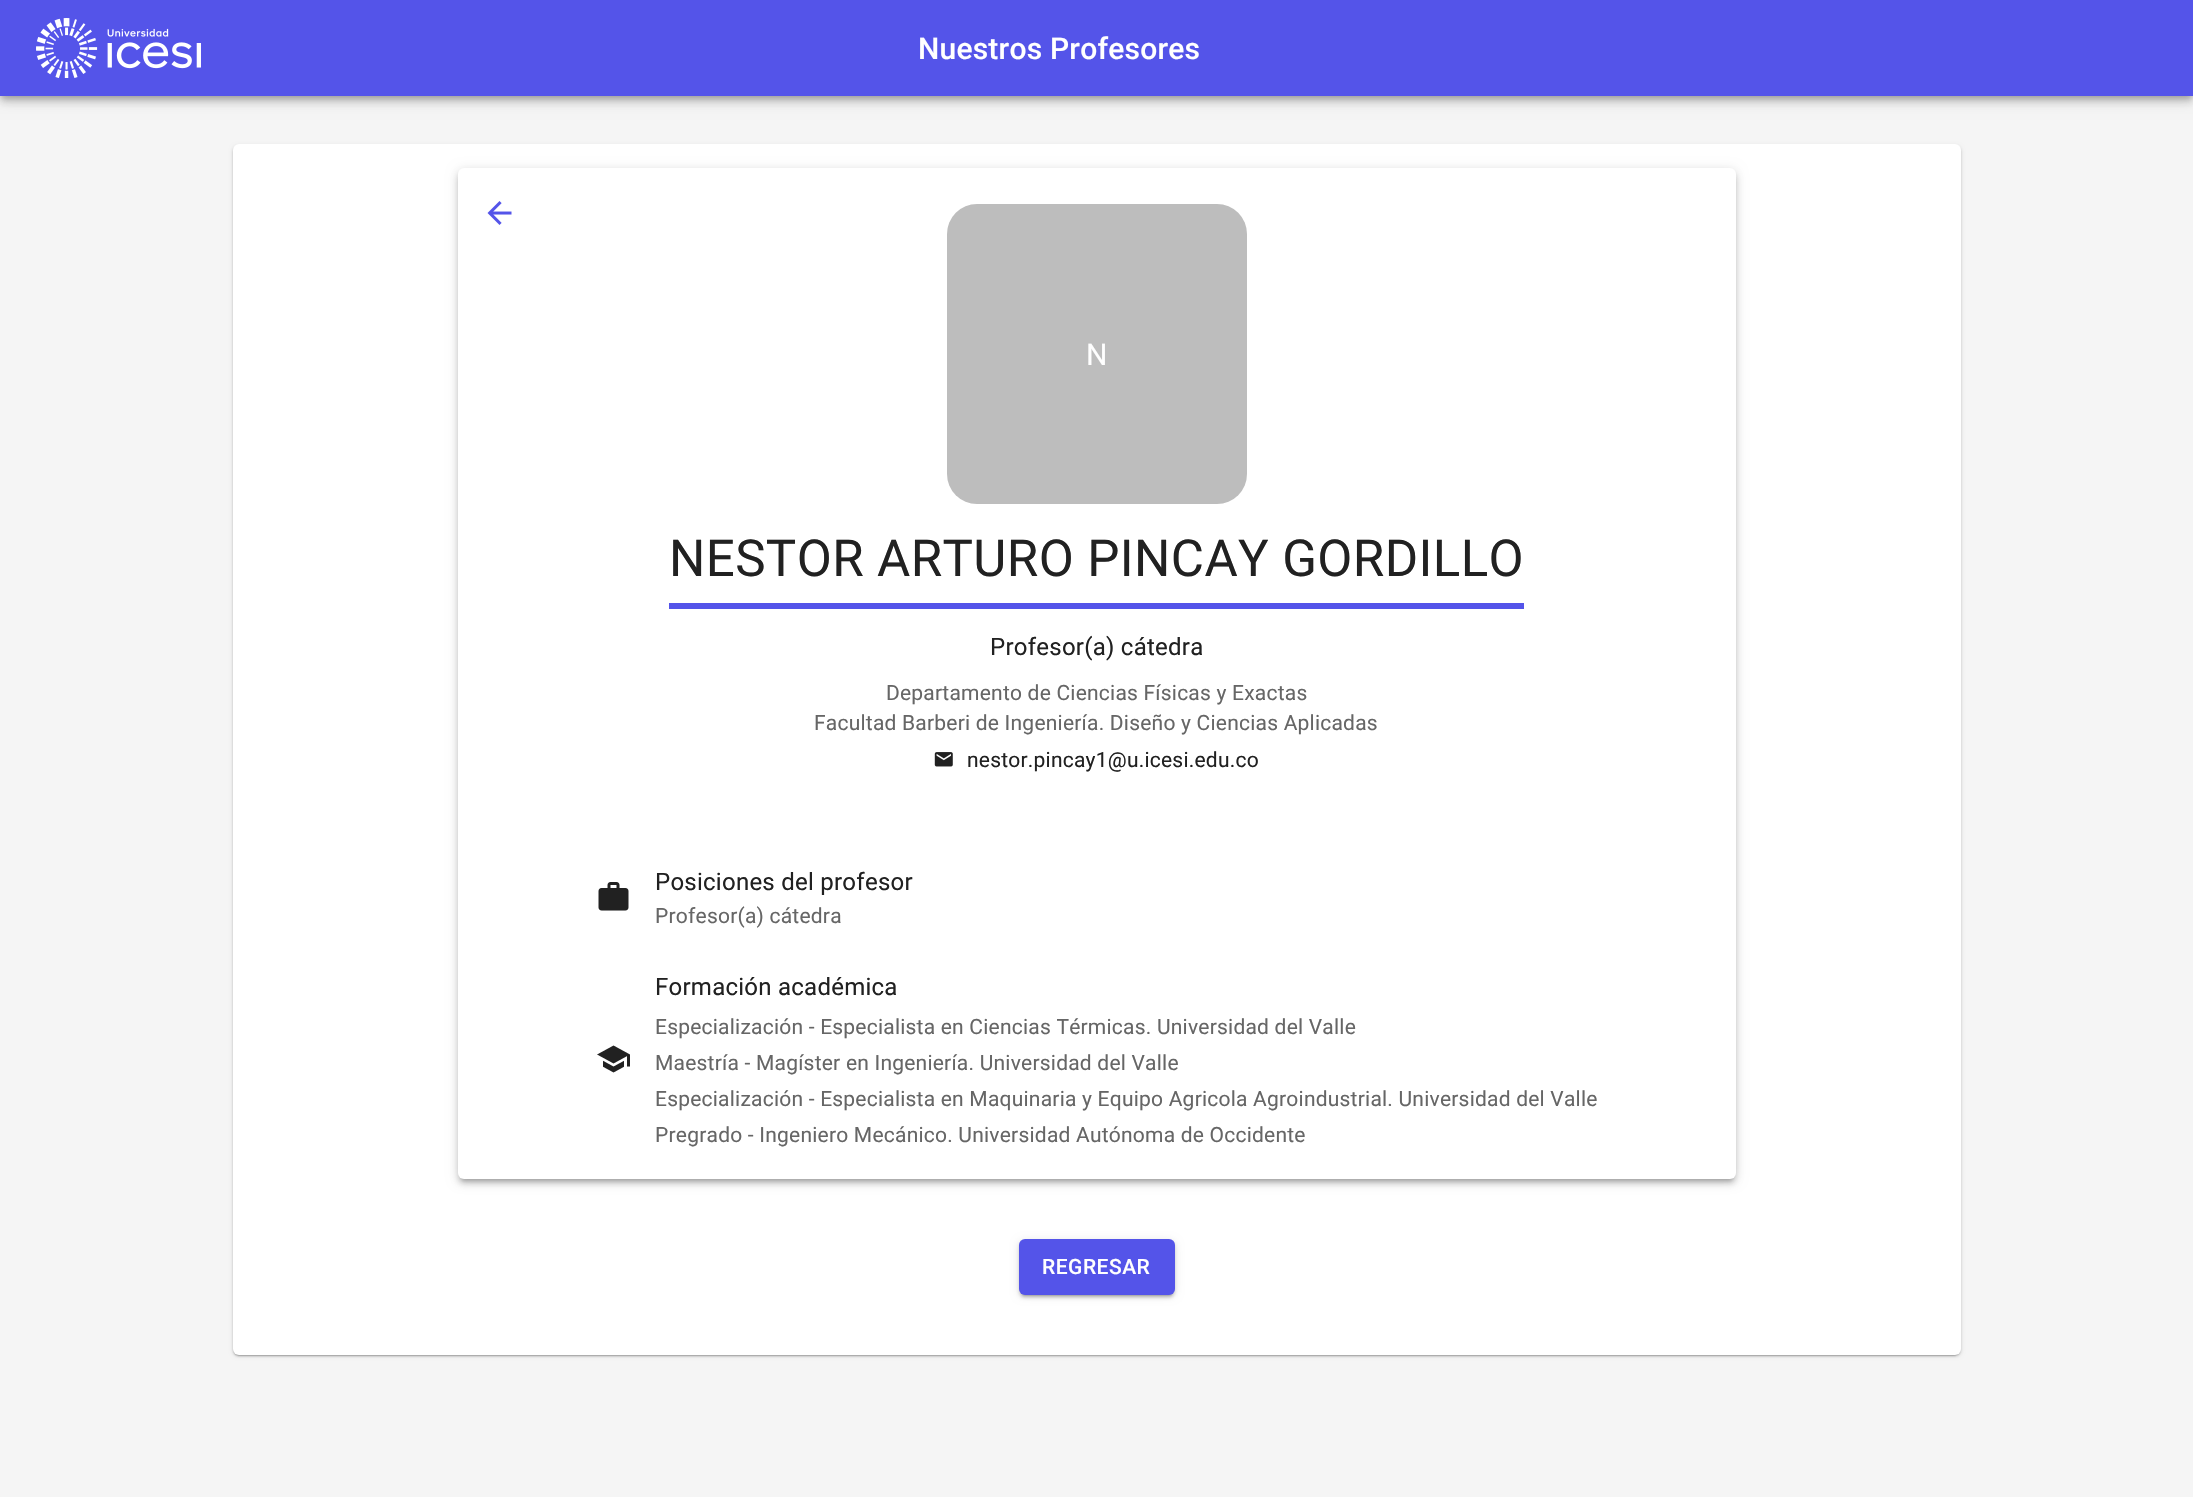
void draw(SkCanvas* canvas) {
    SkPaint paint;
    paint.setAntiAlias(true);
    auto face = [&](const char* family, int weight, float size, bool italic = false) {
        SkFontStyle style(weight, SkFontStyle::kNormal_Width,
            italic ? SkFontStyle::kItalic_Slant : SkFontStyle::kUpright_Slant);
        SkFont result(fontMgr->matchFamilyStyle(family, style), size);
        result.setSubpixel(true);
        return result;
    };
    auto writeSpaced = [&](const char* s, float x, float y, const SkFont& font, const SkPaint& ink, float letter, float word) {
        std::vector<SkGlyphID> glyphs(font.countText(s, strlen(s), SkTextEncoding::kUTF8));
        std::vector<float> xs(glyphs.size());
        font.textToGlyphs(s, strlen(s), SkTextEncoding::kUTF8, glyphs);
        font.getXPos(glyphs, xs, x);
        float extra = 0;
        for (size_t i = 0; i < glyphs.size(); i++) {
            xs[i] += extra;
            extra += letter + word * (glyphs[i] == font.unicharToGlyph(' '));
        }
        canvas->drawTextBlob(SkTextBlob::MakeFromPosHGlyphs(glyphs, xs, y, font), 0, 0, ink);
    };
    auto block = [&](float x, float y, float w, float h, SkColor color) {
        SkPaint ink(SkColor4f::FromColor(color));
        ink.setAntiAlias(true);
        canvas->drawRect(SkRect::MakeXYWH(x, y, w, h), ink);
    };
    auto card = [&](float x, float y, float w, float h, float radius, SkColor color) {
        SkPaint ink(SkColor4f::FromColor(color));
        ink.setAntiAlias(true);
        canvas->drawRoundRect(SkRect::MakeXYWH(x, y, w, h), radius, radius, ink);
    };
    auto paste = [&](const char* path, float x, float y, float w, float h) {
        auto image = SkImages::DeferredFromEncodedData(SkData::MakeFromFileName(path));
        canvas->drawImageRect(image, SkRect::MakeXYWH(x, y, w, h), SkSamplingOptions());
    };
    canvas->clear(SkColorSetRGB(245, 245, 245));
    paint.setColor(SkColorSetARGB(31, 0, 0, 0));
    paint.setMaskFilter(SkMaskFilter::MakeBlur(kNormal_SkBlurStyle, 7.5f));
    canvas->drawRect(SkRect::MakeXYWH(0, 2, 2193, 96), paint);
    paint.setMaskFilter(nullptr);
    paint.setColor(SkColorSetARGB(36, 0, 0, 0));
    paint.setMaskFilter(SkMaskFilter::MakeBlur(kNormal_SkBlurStyle, 4));
    canvas->drawRect(SkRect::MakeXYWH(0, 6, 2193, 96), paint);
    paint.setMaskFilter(nullptr);
    paint.setColor(SkColorSetARGB(51, 0, 0, 0));
    paint.setMaskFilter(SkMaskFilter::MakeBlur(kNormal_SkBlurStyle, 3));
    canvas->drawRect(SkRect::MakeXYWH(2, 5, 2190, 93), paint);
    paint.setMaskFilter(nullptr);
    block(0, 0, 2193, 96, SkColorSetRGB(84, 84, 233));
    paste("pic1.png", 36, 18, 165, 60);
    auto kFont1 = face("Roboto", 500, 30);
    paint.setColor(SK_ColorWHITE);
    writeSpaced("Nuestros Profesores", 918, 59, kFont1, paint, 0.22f, 0);
    paint.setColor(SkColorSetARGB(31, 0, 0, 0));
    paint.setMaskFilter(SkMaskFilter::MakeBlur(kNormal_SkBlurStyle, 2));
    canvas->drawRoundRect(SkRect::MakeXYWH(233, 146, 1728, 1210), 6, 6, paint);
    paint.setMaskFilter(nullptr);
    paint.setColor(SkColorSetARGB(36, 0, 0, 0));
    paint.setMaskFilter(SkMaskFilter::MakeBlur(kNormal_SkBlurStyle, 1));
    canvas->drawRoundRect(SkRect::MakeXYWH(233, 146, 1728, 1210), 6, 6, paint);
    paint.setMaskFilter(nullptr);
    paint.setColor(SkColorSetARGB(51, 0, 0, 0));
    paint.setMaskFilter(SkMaskFilter::MakeBlur(kNormal_SkBlurStyle, 1));
    canvas->drawRoundRect(SkRect::MakeXYWH(234, 149, 1725, 1207), 5, 5, paint);
    paint.setMaskFilter(nullptr);
    card(233, 144, 1728, 1211, 6, SK_ColorWHITE);
    paint.setColor(SkColorSetARGB(31, 0, 0, 0));
    paint.setMaskFilter(SkMaskFilter::MakeBlur(kNormal_SkBlurStyle, 6));
    canvas->drawRoundRect(SkRect::MakeXYWH(458, 170, 1278, 1011), 6, 6, paint);
    paint.setMaskFilter(nullptr);
    paint.setColor(SkColorSetARGB(36, 0, 0, 0));
    paint.setMaskFilter(SkMaskFilter::MakeBlur(kNormal_SkBlurStyle, 3));
    canvas->drawRoundRect(SkRect::MakeXYWH(458, 173, 1278, 1011), 6, 6, paint);
    paint.setMaskFilter(nullptr);
    paint.setColor(SkColorSetARGB(51, 0, 0, 0));
    paint.setMaskFilter(SkMaskFilter::MakeBlur(kNormal_SkBlurStyle, 2));
    canvas->drawRoundRect(SkRect::MakeXYWH(461, 176, 1272, 1005), 3, 3, paint);
    paint.setMaskFilter(nullptr);
    card(458, 168, 1278, 1011, 6, SK_ColorWHITE);
    paste("pic2.png", 487, 201, 25, 24);
    card(947, 204, 300, 300, 30, SkColorSetRGB(189, 189, 189));
    auto kFont2 = face("Roboto", 400, 30);
    paint.setColor(SK_ColorWHITE);
    writeSpaced("N", 1086, 365, kFont2, paint, 0.25f, 0);
    auto kFont3 = face("Roboto", 400, 51);
    paint.setColor(SkColorSetRGB(33, 33, 33));
    writeSpaced("NESTOR ARTURO PINCAY GORDILLO", 669, 576, kFont3, paint, 0.4f, 0);
    block(669, 603, 855, 6, SkColorSetRGB(84, 84, 233));
    auto kFont4 = face("Roboto", 400, 24);
    writeSpaced("Profesor(a) cátedra", 990, 655, kFont4, paint, 0.25f, 0);
    auto kFont5 = face("Roboto", 400, 21);
    paint.setColor(SkColorSetRGB(102, 102, 102));
    writeSpaced("Departamento de Ciencias Físicas y Exactas", 886, 700, kFont5, paint, 0.22f, 0);
    writeSpaced("Facultad Barberi de Ingeniería. Diseño y Ciencias Aplicadas", 814, 730, kFont5, paint, 0.22f, 0);
    paste("pic3.png", 934, 752, 19, 15);
    paint.setColor(SkColorSetRGB(33, 33, 33));
    writeSpaced("nestor.pincay1@u.icesi.edu.co", 967, 767, kFont5, paint, 0.22f, 0);
    paste("pic4.png", 598, 882, 31, 29);
    writeSpaced("Posiciones del profesor", 655, 890, kFont4, paint, 0.25f, 0);
    paint.setColor(SkColorSetRGB(102, 102, 102));
    writeSpaced("Profesor(a) cátedra", 655, 923, kFont5, paint, 0.22f, 0);
    paste("pic5.png", 597, 1045, 33, 28);
    paint.setColor(SkColorSetRGB(33, 33, 33));
    writeSpaced("Formación académica", 655, 995, kFont4, paint, 0.25f, 0);
    paint.setColor(SkColorSetRGB(102, 102, 102));
    writeSpaced("Especialización - Especialista en Ciencias Térmicas. Universidad del Valle", 655, 1034, kFont5, paint, 0.22f, 0);
    writeSpaced("Maestría - Magíster en Ingeniería. Universidad del Valle", 655, 1070, kFont5, paint, 0.22f, 0);
    writeSpaced("Especialización - Especialista en Maquinaria y Equipo Agricola Agroindustrial. Universidad del Valle", 655, 1106, kFont5, paint, 0.22f, 0);
    writeSpaced("Pregrado - Ingeniero Mecánico. Universidad Autónoma de Occidente", 655, 1142, kFont5, paint, 0.22f, 0);
    paint.setColor(SkColorSetARGB(31, 0, 0, 0));
    paint.setMaskFilter(SkMaskFilter::MakeBlur(kNormal_SkBlurStyle, 4));
    canvas->drawRoundRect(SkRect::MakeXYWH(1019, 1241, 156, 55), 6, 6, paint);
    paint.setMaskFilter(nullptr);
    paint.setColor(SkColorSetARGB(36, 0, 0, 0));
    paint.setMaskFilter(SkMaskFilter::MakeBlur(kNormal_SkBlurStyle, 1.5f));
    canvas->drawRoundRect(SkRect::MakeXYWH(1019, 1242, 156, 56), 6, 6, paint);
    paint.setMaskFilter(nullptr);
    paint.setColor(SkColorSetARGB(51, 0, 0, 0));
    paint.setMaskFilter(SkMaskFilter::MakeBlur(kNormal_SkBlurStyle, 1));
    canvas->drawRoundRect(SkRect::MakeXYWH(1022, 1247, 150, 49), 3, 3, paint);
    paint.setMaskFilter(nullptr);
    card(1019, 1239, 156, 56, 6, SkColorSetRGB(84, 84, 233));
    auto kFont6 = face("Roboto", 500, 21);
    paint.setColor(SK_ColorWHITE);
    writeSpaced("REGRESAR", 1042, 1274, kFont6, paint, 0.5f, 0);
}
